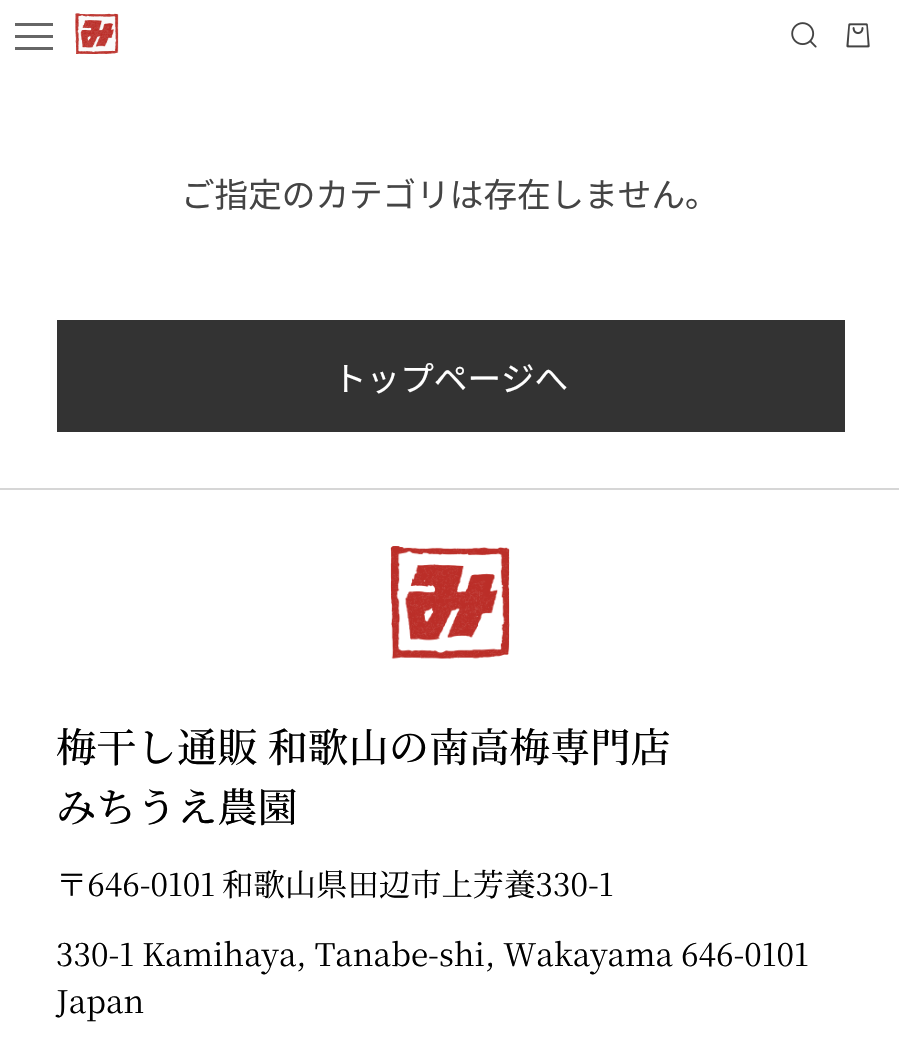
void draw(SkCanvas* canvas) {
    SkPaint paint;
    paint.setAntiAlias(true);
    auto face = [&](const char* family, int weight, float size, bool italic = false) {
        SkFontStyle style(weight, SkFontStyle::kNormal_Width,
            italic ? SkFontStyle::kItalic_Slant : SkFontStyle::kUpright_Slant);
        SkFont result(fontMgr->matchFamilyStyle(family, style), size);
        result.setSubpixel(true);
        return result;
    };
    auto write = [&](const char* s, float x, float y, const SkFont& font, SkColor color) {
        SkPaint ink(SkColor4f::FromColor(color));
        ink.setAntiAlias(true);
        canvas->drawString(s, x, y, font, ink);
    };
    auto writeSpaced = [&](const char* s, float x, float y, const SkFont& font, const SkPaint& ink, float letter, float word) {
        std::vector<SkGlyphID> glyphs(font.countText(s, strlen(s), SkTextEncoding::kUTF8));
        std::vector<float> xs(glyphs.size());
        font.textToGlyphs(s, strlen(s), SkTextEncoding::kUTF8, glyphs);
        font.getXPos(glyphs, xs, x);
        float extra = 0;
        for (size_t i = 0; i < glyphs.size(); i++) {
            xs[i] += extra;
            extra += letter + word * (glyphs[i] == font.unicharToGlyph(' '));
        }
        canvas->drawTextBlob(SkTextBlob::MakeFromPosHGlyphs(glyphs, xs, y, font), 0, 0, ink);
    };
    auto block = [&](float x, float y, float w, float h, SkColor color) {
        SkPaint ink(SkColor4f::FromColor(color));
        ink.setAntiAlias(true);
        canvas->drawRect(SkRect::MakeXYWH(x, y, w, h), ink);
    };
    auto paste = [&](const char* path, float x, float y, float w, float h) {
        auto image = SkImages::DeferredFromEncodedData(SkData::MakeFromFileName(path));
        canvas->drawImageRect(image, SkRect::MakeXYWH(x, y, w, h), SkSamplingOptions());
    };
    canvas->clear(SK_ColorWHITE);
    block(15, 35, 38, 3, SkColorSetRGB(102, 102, 102));
    block(15, 23, 38, 3, SkColorSetRGB(102, 102, 102));
    block(15, 47, 38, 3, SkColorSetRGB(102, 102, 102));
    paste("pic1.png", 75, 13, 44, 41);
    paste("pic2.png", 791, 22, 26, 26);
    paste("pic3.png", 846, 23, 24, 25);
    auto kFont1 = face("Noto Sans JP", 400, 33.6f);
    write("ご指定のカテゴリは存在しません。", 181, 207, kFont1, SkColorSetRGB(68, 68, 68));
    block(57, 320, 788, 112, SkColorSetRGB(51, 51, 51));
    write("トップページへ", 333, 391, kFont1, SK_ColorWHITE);
    block(0, 488, 899, 2, SkColorSetRGB(214, 214, 214));
    paste("pic4.png", 390, 546, 120, 113);
    auto kFont2 = face("Noto Serif JP", 500, 40.3f);
    write("梅干し通販 和歌山の南高梅専門店", 56, 762, kFont2, SK_ColorBLACK);
    write("みちうえ農園", 56, 822, kFont2, SK_ColorBLACK);
    auto kFont3 = face("Noto Serif JP", 400, 31.35f);
    paint.setColor(SK_ColorBLACK);
    writeSpaced("〒646-0101 和歌山県田辺市上芳養330-1", 56, 896, kFont3, paint, 0, -1);
    write("330-1 Kamihaya, Tanabe-shi, Wakayama 646-0101", 56, 966, kFont3, SK_ColorBLACK);
    write("Japan", 56, 1013, kFont3, SK_ColorBLACK);
}
